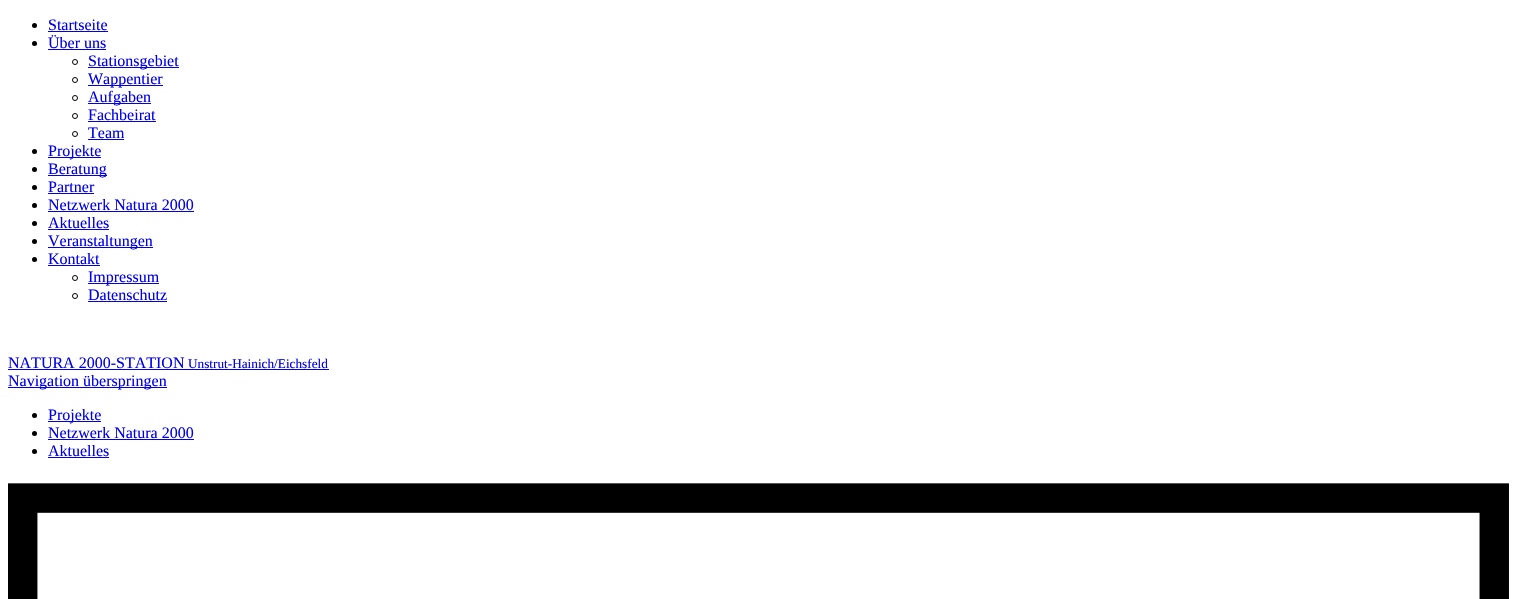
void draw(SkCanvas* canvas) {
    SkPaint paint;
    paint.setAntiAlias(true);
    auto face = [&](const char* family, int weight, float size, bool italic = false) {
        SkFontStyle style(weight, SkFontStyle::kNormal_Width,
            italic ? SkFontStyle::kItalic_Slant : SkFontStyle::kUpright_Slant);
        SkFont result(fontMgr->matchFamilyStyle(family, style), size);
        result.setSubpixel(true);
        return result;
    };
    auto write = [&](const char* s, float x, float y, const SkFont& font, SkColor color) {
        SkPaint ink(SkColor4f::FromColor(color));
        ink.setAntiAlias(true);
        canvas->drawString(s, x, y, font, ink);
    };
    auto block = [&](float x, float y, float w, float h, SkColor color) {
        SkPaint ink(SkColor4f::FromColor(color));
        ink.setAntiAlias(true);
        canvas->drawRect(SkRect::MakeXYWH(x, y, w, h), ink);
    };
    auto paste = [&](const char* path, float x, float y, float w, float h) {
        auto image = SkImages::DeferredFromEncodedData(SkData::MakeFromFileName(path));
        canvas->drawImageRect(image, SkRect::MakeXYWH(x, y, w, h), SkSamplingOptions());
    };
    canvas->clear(SK_ColorWHITE);
    paint.setColor(SK_ColorBLACK);
    canvas->drawCircle(34.5f, 25.5f, 2.5f, paint);
    auto kFont1 = face("Liberation Serif", 400, 16);
    write("Startseite", 48, 30, kFont1, SkColorSetRGB(0, 0, 238));
    block(48, 31, 60, 1, SkColorSetRGB(0, 0, 238));
    canvas->drawCircle(34.5f, 43.5f, 2.5f, paint);
    write("Über uns", 48, 48, kFont1, SkColorSetRGB(0, 0, 238));
    block(48, 49, 58, 1, SkColorSetRGB(0, 0, 238));
    paint.setStyle(SkPaint::kStroke_Style);
    paint.setStrokeWidth(1);
    canvas->drawCircle(75, 62, 2.5f, paint);
    block(88, 67, 91, 1, SkColorSetRGB(0, 0, 238));
    write("Stationsgebiet", 88, 66, kFont1, SkColorSetRGB(0, 0, 238));
    canvas->drawCircle(75, 80, 2.5f, paint);
    block(88, 85, 75, 1, SkColorSetRGB(0, 0, 238));
    write("Wappentier", 88, 84, kFont1, SkColorSetRGB(0, 0, 238));
    canvas->drawCircle(75, 98, 2.5f, paint);
    block(88, 103, 63, 1, SkColorSetRGB(0, 0, 238));
    write("Aufgaben", 88, 102, kFont1, SkColorSetRGB(0, 0, 238));
    canvas->drawCircle(75, 116, 2.5f, paint);
    write("Fachbeirat", 88, 120, kFont1, SkColorSetRGB(0, 0, 238));
    block(88, 121, 68, 1, SkColorSetRGB(0, 0, 238));
    canvas->drawCircle(75, 134, 2.5f, paint);
    write("Team", 88, 138, kFont1, SkColorSetRGB(0, 0, 238));
    block(88, 139, 36, 1, SkColorSetRGB(0, 0, 238));
    paint.setStyle(SkPaint::kFill_Style);
    canvas->drawCircle(34.5f, 151.5f, 2.5f, paint);
    block(48, 157, 53, 1, SkColorSetRGB(0, 0, 238));
    write("Projekte", 48, 156, kFont1, SkColorSetRGB(0, 0, 238));
    canvas->drawCircle(34.5f, 169.5f, 2.5f, paint);
    block(48, 175, 59, 1, SkColorSetRGB(0, 0, 238));
    write("Beratung", 48, 174, kFont1, SkColorSetRGB(0, 0, 238));
    canvas->drawCircle(34.5f, 187.5f, 2.5f, paint);
    write("Partner", 48, 192, kFont1, SkColorSetRGB(0, 0, 238));
    block(48, 193, 46, 1, SkColorSetRGB(0, 0, 238));
    canvas->drawCircle(34.5f, 205.5f, 2.5f, paint);
    write("Netzwerk Natura 2000", 48, 210, kFont1, SkColorSetRGB(0, 0, 238));
    block(48, 211, 146, 1, SkColorSetRGB(0, 0, 238));
    canvas->drawCircle(34.5f, 223.5f, 2.5f, paint);
    write("Aktuelles", 48, 228, kFont1, SkColorSetRGB(0, 0, 238));
    block(48, 229, 61, 1, SkColorSetRGB(0, 0, 238));
    canvas->drawCircle(34.5f, 241.5f, 2.5f, paint);
    block(48, 247, 105, 1, SkColorSetRGB(0, 0, 238));
    write("Veranstaltungen", 48, 246, kFont1, SkColorSetRGB(0, 0, 238));
    canvas->drawCircle(34.5f, 259.5f, 2.5f, paint);
    write("Kontakt", 48, 264, kFont1, SkColorSetRGB(0, 0, 238));
    block(48, 265, 52, 1, SkColorSetRGB(0, 0, 238));
    paint.setStyle(SkPaint::kStroke_Style);
    canvas->drawCircle(75, 278, 2.5f, paint);
    block(88, 283, 71, 1, SkColorSetRGB(0, 0, 238));
    write("Impressum", 88, 282, kFont1, SkColorSetRGB(0, 0, 238));
    canvas->drawCircle(75, 296, 2.5f, paint);
    write("Datenschutz", 88, 300, kFont1, SkColorSetRGB(0, 0, 238));
    block(88, 301, 79, 1, SkColorSetRGB(0, 0, 238));
    write("NATURA 2000-STATION", 8, 368, kFont1, SkColorSetRGB(0, 0, 238));
    auto kFont2 = face("Liberation Serif", 400, 13.25f);
    write("Unstrut-Hainich/Eichsfeld", 188, 368, kFont2, SkColorSetRGB(0, 0, 238));
    block(8, 369, 321, 1, SkColorSetRGB(0, 0, 238));
    block(8, 387, 159, 1, SkColorSetRGB(0, 0, 238));
    write("Navigation überspringen", 8, 386, kFont1, SkColorSetRGB(0, 0, 238));
    paint.setStyle(SkPaint::kFill_Style);
    canvas->drawCircle(34.5f, 415.5f, 2.5f, paint);
    block(48, 421, 53, 1, SkColorSetRGB(0, 0, 238));
    write("Projekte", 48, 420, kFont1, SkColorSetRGB(0, 0, 238));
    canvas->drawCircle(34.5f, 433.5f, 2.5f, paint);
    write("Netzwerk Natura 2000", 48, 438, kFont1, SkColorSetRGB(0, 0, 238));
    block(48, 439, 146, 1, SkColorSetRGB(0, 0, 238));
    canvas->drawCircle(34.5f, 451.5f, 2.5f, paint);
    write("Aktuelles", 48, 456, kFont1, SkColorSetRGB(0, 0, 238));
    block(48, 457, 61, 1, SkColorSetRGB(0, 0, 238));
    paste("pic1.png", 8, 483, 1501, 116);
}
